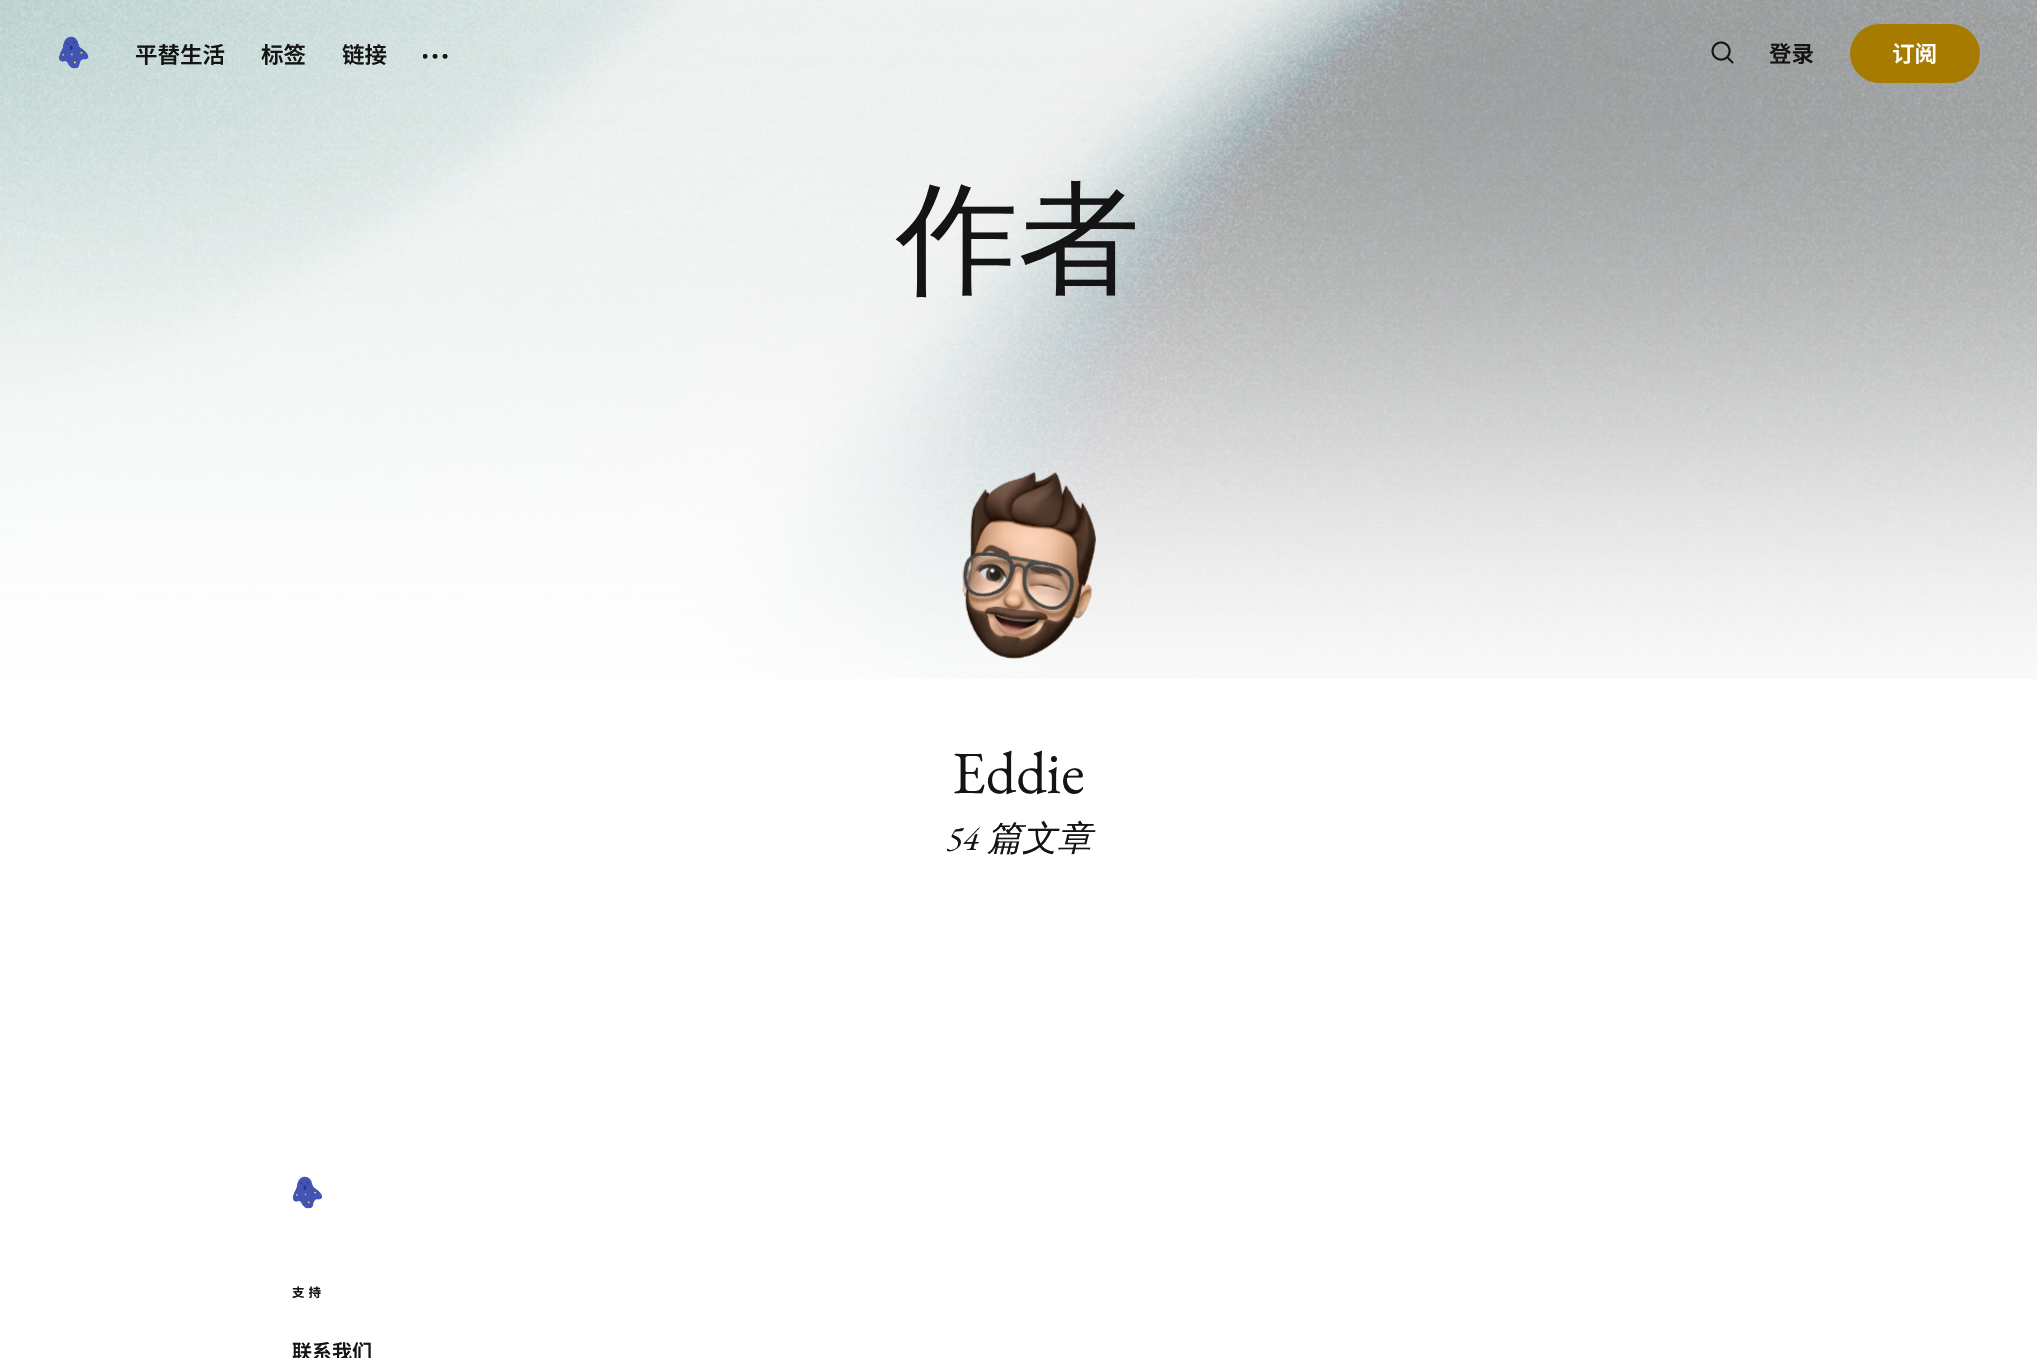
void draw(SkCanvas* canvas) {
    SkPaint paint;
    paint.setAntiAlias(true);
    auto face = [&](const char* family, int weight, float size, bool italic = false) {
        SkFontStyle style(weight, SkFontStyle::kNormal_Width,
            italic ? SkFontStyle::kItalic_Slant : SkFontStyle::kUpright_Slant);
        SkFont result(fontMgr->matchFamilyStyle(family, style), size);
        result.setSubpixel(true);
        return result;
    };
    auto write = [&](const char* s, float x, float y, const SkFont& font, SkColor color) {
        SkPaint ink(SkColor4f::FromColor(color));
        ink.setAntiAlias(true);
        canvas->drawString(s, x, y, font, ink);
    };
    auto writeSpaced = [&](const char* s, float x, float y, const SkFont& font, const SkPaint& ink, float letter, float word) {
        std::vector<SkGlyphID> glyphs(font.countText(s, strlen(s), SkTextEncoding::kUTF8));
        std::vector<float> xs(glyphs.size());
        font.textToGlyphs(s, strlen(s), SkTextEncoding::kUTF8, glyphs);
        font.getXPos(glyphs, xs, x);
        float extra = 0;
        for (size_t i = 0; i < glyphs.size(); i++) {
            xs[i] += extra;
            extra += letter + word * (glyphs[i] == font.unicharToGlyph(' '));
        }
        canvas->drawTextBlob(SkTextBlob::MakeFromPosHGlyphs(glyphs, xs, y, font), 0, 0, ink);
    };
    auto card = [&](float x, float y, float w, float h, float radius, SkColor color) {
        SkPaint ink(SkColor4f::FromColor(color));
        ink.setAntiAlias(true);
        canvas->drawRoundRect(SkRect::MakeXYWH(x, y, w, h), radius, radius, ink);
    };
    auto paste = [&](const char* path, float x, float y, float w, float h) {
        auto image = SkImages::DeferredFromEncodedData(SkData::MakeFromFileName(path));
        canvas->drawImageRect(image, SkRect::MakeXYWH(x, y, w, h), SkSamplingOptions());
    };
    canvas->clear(SK_ColorWHITE);
    paste("pic1.png", 0, 0, 2037, 679);
    paste("pic2.png", 59, 36, 30, 33);
    auto kFont1 = face("Noto Sans SC", 600, 22.5f);
    write("平替生活", 135, 63, kFont1, SkColorSetRGB(20, 20, 20));
    write("标签", 261, 63, kFont1, SkColorSetRGB(20, 20, 20));
    write("链接", 342, 63, kFont1, SkColorSetRGB(20, 20, 20));
    paste("pic3.png", 423, 54, 25, 5);
    paste("pic4.png", 1711, 41, 23, 23);
    write("登录", 1769, 62, kFont1, SkColorSetRGB(20, 20, 20));
    card(1850, 24, 130, 59, 29.5f, SkColorSetRGB(167, 123, 0));
    write("订阅", 1892, 62, kFont1, SK_ColorWHITE);
    auto kFont2 = face("WenQuanYi Zen Hei", 500, 122);
    write("作者", 896, 281, kFont2, SkColorSetRGB(20, 20, 20));
    paste("pic5.png", 962, 471, 134, 188);
    auto kFont3 = face("EB Garamond", 400, 60);
    write("Eddie", 952, 793, kFont3, SkColorSetRGB(20, 20, 20));
    auto kFont4 = face("EB Garamond", 400, 35, true);
    write("54", 946, 850, kFont4, SkColorSetRGB(20, 20, 20));
    auto kFont5 = face("WenQuanYi Zen Hei", 500, 35, true);
    write("篇文章", 987, 850, kFont5, SkColorSetRGB(20, 20, 20));
    paste("pic6.png", 292, 1176, 30, 33);
    auto kFont6 = face("Noto Sans SC", 700, 12.5f);
    paint.setColor(SkColorSetRGB(20, 20, 20));
    writeSpaced("支持", 292, 1297, kFont6, paint, 4, 0);
    auto kFont7 = face("Noto Sans SC", 600, 20);
    write("联系我们", 292, 1359, kFont7, SkColorSetRGB(20, 20, 20));
}
